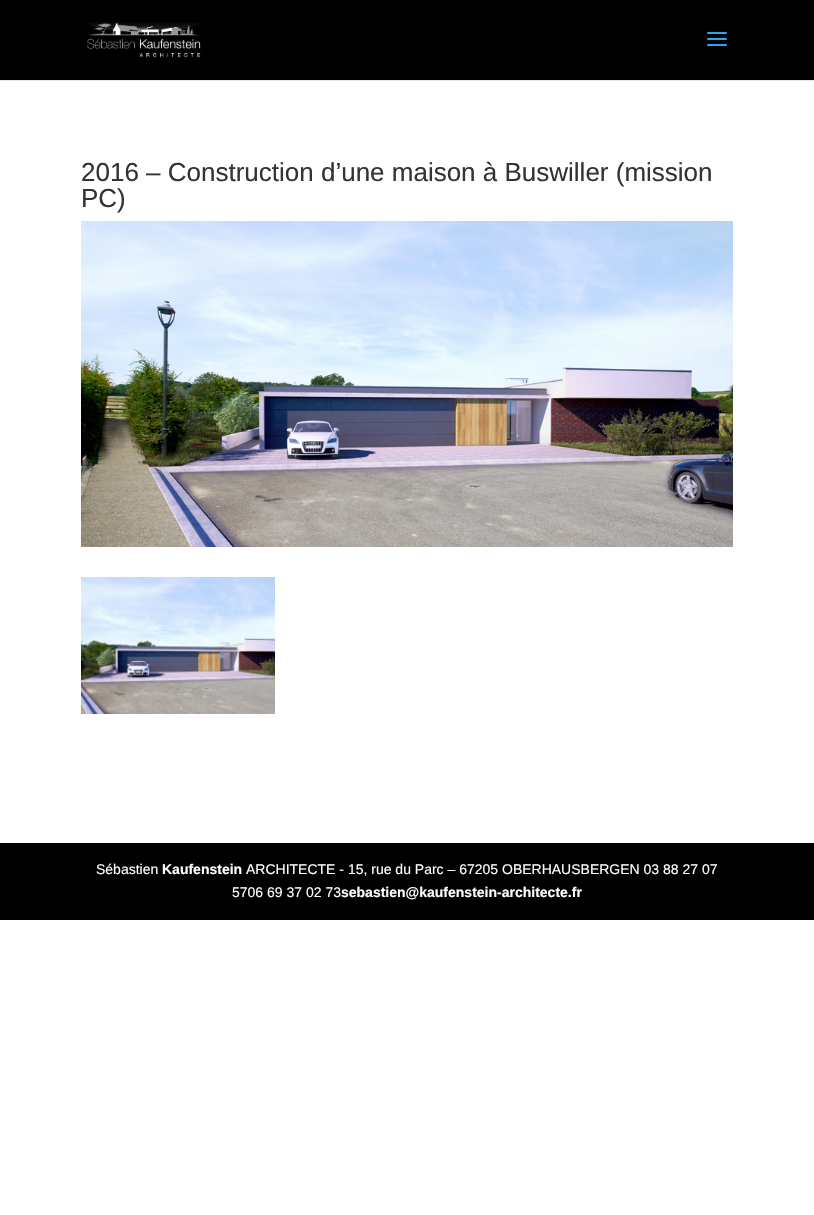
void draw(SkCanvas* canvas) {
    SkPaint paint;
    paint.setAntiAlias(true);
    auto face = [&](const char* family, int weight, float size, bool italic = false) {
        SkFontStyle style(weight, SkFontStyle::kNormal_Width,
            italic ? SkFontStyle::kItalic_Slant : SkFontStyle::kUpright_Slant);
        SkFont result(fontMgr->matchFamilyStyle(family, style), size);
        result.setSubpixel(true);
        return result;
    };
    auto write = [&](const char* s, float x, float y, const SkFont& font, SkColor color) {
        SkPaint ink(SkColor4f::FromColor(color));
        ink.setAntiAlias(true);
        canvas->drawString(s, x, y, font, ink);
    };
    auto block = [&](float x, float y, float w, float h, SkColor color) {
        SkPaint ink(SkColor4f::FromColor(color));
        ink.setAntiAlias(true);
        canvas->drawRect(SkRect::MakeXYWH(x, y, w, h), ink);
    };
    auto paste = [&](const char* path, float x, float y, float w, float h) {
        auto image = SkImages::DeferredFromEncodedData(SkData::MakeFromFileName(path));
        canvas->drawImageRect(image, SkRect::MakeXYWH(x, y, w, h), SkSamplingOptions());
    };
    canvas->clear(SK_ColorWHITE);
    block(0, 80, 814, 1, SkColorSetRGB(230, 230, 230));
    block(0, 0, 814, 80, SK_ColorBLACK);
    paste("pic1.png", 87, 22, 114, 36);
    paste("pic2.png", 707, 32, 20, 14);
    auto kFont1 = face("Liberation Sans", 400, 26);
    write("2016 – Construction d’une maison à Buswiller (mission", 81, 181, kFont1, SkColorSetRGB(51, 51, 51));
    write("PC)", 81, 207, kFont1, SkColorSetRGB(51, 51, 51));
    paste("pic3.png", 81, 221, 652, 326);
    paste("pic4.png", 81, 577, 194, 137);
    block(0, 843, 814, 77, SK_ColorBLACK);
    auto kFont2 = face("Liberation Sans", 400, 14);
    write("Sébastien", 96, 874, kFont2, SK_ColorWHITE);
    auto kFont3 = face("Liberation Sans", 700, 14);
    write("Kaufenstein", 162, 874, kFont3, SK_ColorWHITE);
    write("ARCHITECTE - 15, rue du Parc – 67205 OBERHAUSBERGEN 03 88 27 07", 246, 874, kFont2, SK_ColorWHITE);
    write("5706 69 37 02 73", 232, 897, kFont2, SK_ColorWHITE);
    write("sebastien@kaufenstein-architecte.fr", 341, 897, kFont3, SK_ColorWHITE);
}
